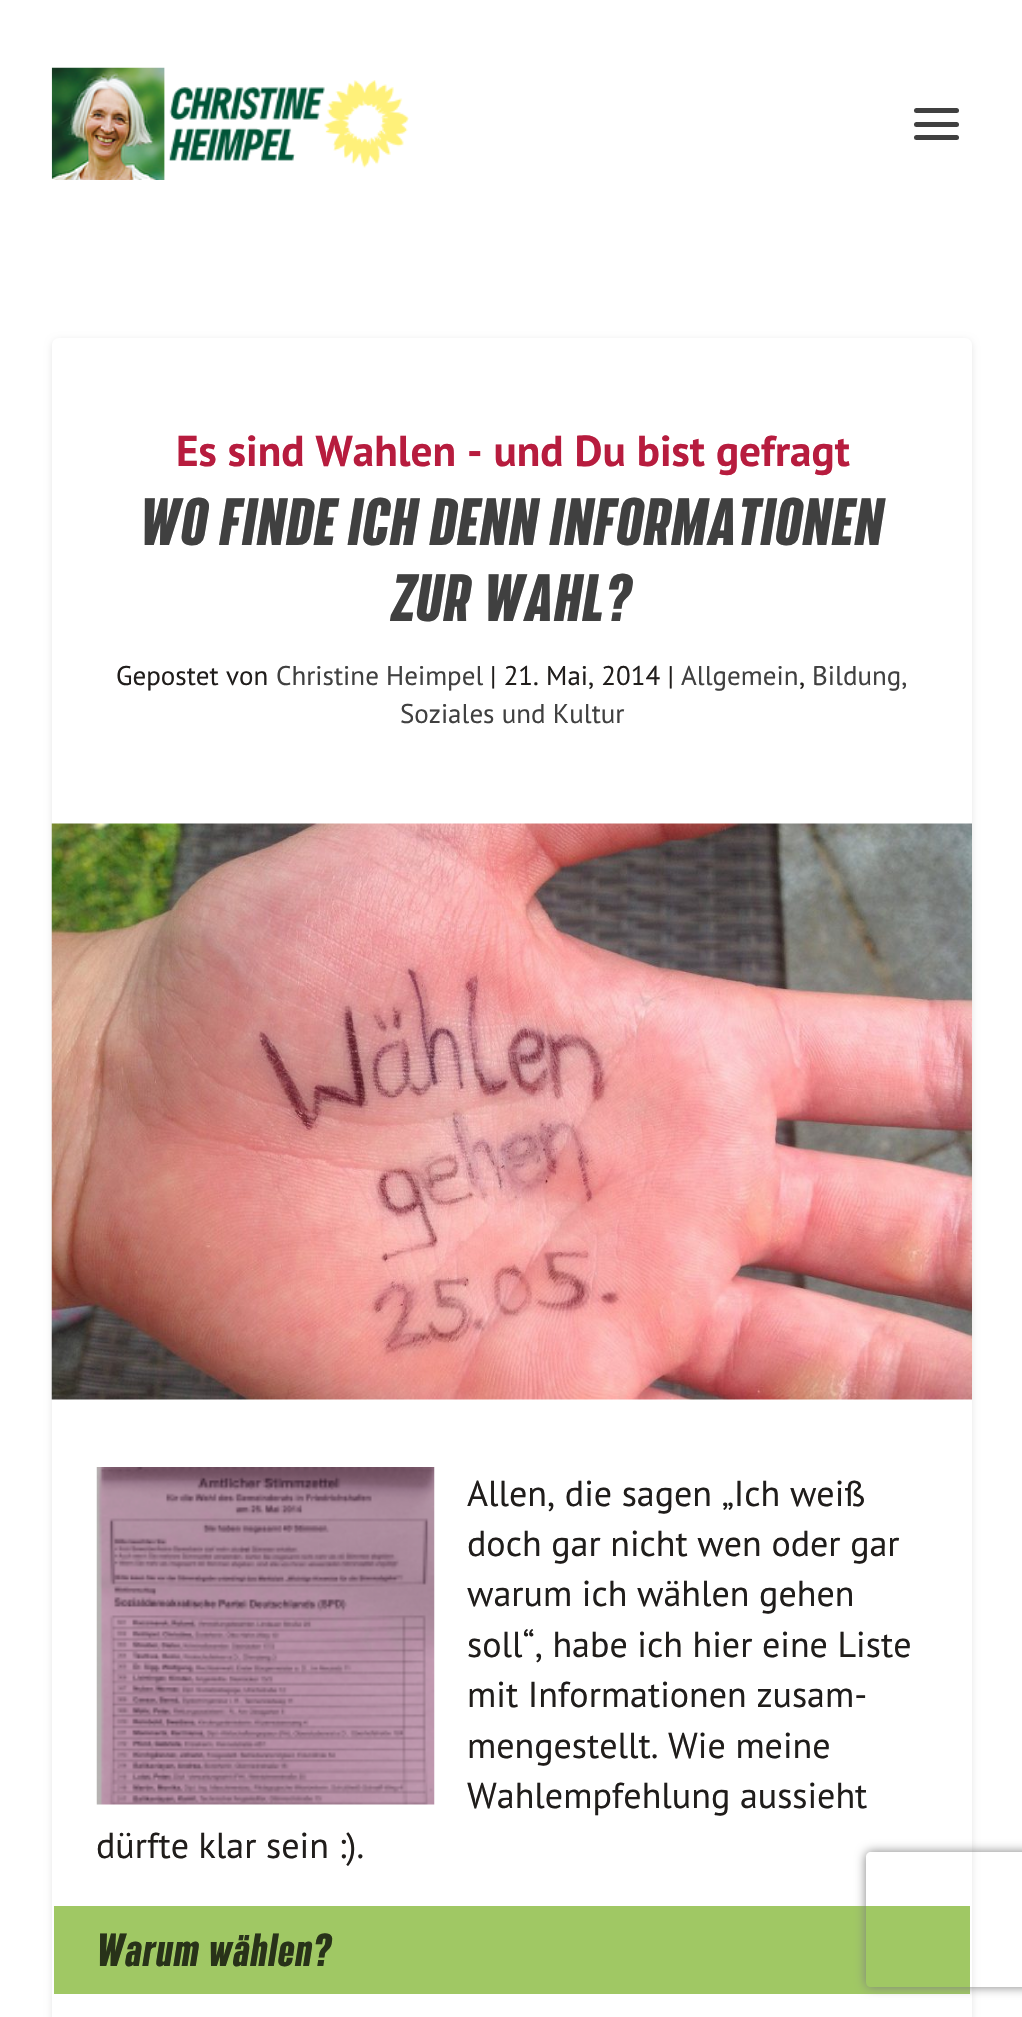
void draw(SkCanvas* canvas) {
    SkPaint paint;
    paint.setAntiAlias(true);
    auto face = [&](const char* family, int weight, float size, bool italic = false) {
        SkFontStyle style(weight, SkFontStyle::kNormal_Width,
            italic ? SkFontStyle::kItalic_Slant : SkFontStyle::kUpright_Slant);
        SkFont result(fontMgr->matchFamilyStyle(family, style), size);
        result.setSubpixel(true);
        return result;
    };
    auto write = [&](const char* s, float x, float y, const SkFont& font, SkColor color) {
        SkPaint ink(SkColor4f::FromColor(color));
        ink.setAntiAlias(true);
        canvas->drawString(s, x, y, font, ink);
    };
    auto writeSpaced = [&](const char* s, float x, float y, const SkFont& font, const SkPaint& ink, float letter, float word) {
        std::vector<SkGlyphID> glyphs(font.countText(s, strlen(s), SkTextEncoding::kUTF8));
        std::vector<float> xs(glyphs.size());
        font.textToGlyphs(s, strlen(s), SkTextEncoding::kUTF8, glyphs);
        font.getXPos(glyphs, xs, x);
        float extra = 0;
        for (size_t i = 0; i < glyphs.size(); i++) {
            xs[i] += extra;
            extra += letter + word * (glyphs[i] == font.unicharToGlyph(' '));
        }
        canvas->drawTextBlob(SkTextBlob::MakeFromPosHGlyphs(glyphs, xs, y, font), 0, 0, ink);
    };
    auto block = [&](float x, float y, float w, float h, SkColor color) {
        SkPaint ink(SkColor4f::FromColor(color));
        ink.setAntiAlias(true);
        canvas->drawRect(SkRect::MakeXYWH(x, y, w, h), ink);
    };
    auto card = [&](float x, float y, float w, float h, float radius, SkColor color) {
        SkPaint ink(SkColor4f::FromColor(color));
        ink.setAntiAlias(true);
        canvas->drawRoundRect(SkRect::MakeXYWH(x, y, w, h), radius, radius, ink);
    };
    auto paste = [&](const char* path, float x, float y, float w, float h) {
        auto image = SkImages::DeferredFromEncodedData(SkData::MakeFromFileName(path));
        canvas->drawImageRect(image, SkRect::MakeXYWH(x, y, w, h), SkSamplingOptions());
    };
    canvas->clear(SK_ColorWHITE);
    paste("pic1.png", 51, 67, 358, 113);
    card(914, 108, 45, 5, 2.5f, SkColorSetRGB(64, 64, 64));
    card(914, 122, 45, 5, 2.5f, SkColorSetRGB(64, 64, 64));
    card(914, 135, 45, 5, 2.5f, SkColorSetRGB(64, 64, 64));
    canvas->save();
    canvas->clipPath(SkPathBuilder(SkPathFillType::kEvenOdd).moveTo(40, 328).lineTo(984, 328).lineTo(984, 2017).lineTo(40, 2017).close().moveTo(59, 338).lineTo(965, 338).cubicTo(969, 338, 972, 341, 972, 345).lineTo(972, 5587).cubicTo(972, 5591, 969, 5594, 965, 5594).lineTo(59, 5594).cubicTo(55, 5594, 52, 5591, 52, 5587).lineTo(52, 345).cubicTo(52, 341, 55, 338, 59, 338).close().detach(), true);
    paint.setColor(SkColorSetARGB(26, 0, 0, 0));
    paint.setMaskFilter(SkMaskFilter::MakeBlur(kNormal_SkBlurStyle, 3.5f));
    canvas->drawRoundRect(SkRect::MakeXYWH(52, 340, 920, 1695), 7, 7, paint);
    paint.setMaskFilter(nullptr);
    canvas->restore();
    auto kFont1 = face("PT Sans", 700, 43.25f);
    write("Es sind Wahlen - und Du bist gefragt", 176, 466, kFont1, SkColorSetRGB(183, 28, 62));
    auto kFont2 = face("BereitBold", 700, 58.5f, true);
    paint.setColor(SkColorSetRGB(64, 64, 64));
    writeSpaced("WO FINDE ICH DENN INFORMATIONEN", 139, 545, kFont2, paint, 1.1f, 0);
    writeSpaced("ZUR WAHL?", 392, 621, kFont2, paint, 1.1f, 0);
    auto kFont3 = face("PT Sans", 400, 27);
    write("Gepostet von", 116, 685, kFont3, SkColorSetRGB(32, 29, 27));
    write("Christine Heimpel", 276, 685, kFont3, SkColorSetRGB(64, 64, 64));
    write("| 21. Mai, 2014 |", 490, 685, kFont3, SkColorSetRGB(32, 29, 27));
    write("Allgemein", 681, 685, kFont3, SkColorSetRGB(64, 64, 64));
    write(",", 799, 685, kFont3, SkColorSetRGB(32, 29, 27));
    write("Bildung,", 812, 685, kFont3, SkColorSetRGB(64, 64, 64));
    write("Soziales und Kultur", 400, 723, kFont3, SkColorSetRGB(64, 64, 64));
    paste("pic2.png", 51, 823, 921, 577);
    paste("pic3.png", 96, 1467, 339, 338);
    auto kFont4 = face("PT Sans", 400, 36);
    write("Allen, die sagen „Ich weiß", 467, 1506, kFont4, SkColorSetRGB(32, 29, 27));
    write("doch gar nicht wen oder gar", 467, 1556, kFont4, SkColorSetRGB(32, 29, 27));
    write("warum ich wählen gehen", 467, 1606, kFont4, SkColorSetRGB(32, 29, 27));
    write("soll“, habe ich hier eine Liste", 467, 1657, kFont4, SkColorSetRGB(32, 29, 27));
    write("mit Informationen zusam-", 467, 1707, kFont4, SkColorSetRGB(32, 29, 27));
    write("mengestellt. Wie meine", 467, 1758, kFont4, SkColorSetRGB(32, 29, 27));
    write("Wahlempfehlung aussieht", 467, 1808, kFont4, SkColorSetRGB(32, 29, 27));
    write("dürfte klar sein :).", 96, 1858, kFont4, SkColorSetRGB(32, 29, 27));
    block(54, 1906, 916, 88, SkColorSetRGB(160, 200, 100));
    auto kFont5 = face("BereitBold", 700, 40.5f);
    paint.setColor(SkColorSetRGB(40, 50, 25));
    writeSpaced("Warum wählen?", 96, 1966, kFont5, paint, 1.1f, 0);
    canvas->save();
    canvas->clipPath(SkPathBuilder(SkPathFillType::kEvenOdd).moveTo(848, 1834).lineTo(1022, 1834).lineTo(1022, 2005).lineTo(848, 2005).close().moveTo(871, 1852).lineTo(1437, 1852).cubicTo(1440, 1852, 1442, 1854, 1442, 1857).lineTo(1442, 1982).cubicTo(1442, 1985, 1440, 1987, 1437, 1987).lineTo(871, 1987).cubicTo(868, 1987, 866, 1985, 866, 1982).lineTo(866, 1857).cubicTo(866, 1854, 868, 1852, 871, 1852).close().detach(), true);
    paint.setColor(SkColorSetRGB(128, 128, 128));
    paint.setMaskFilter(SkMaskFilter::MakeBlur(kNormal_SkBlurStyle, 5.5f));
    canvas->drawRoundRect(SkRect::MakeXYWH(866, 1852, 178, 135), 5, 5, paint);
    paint.setMaskFilter(nullptr);
    canvas->restore();
}
